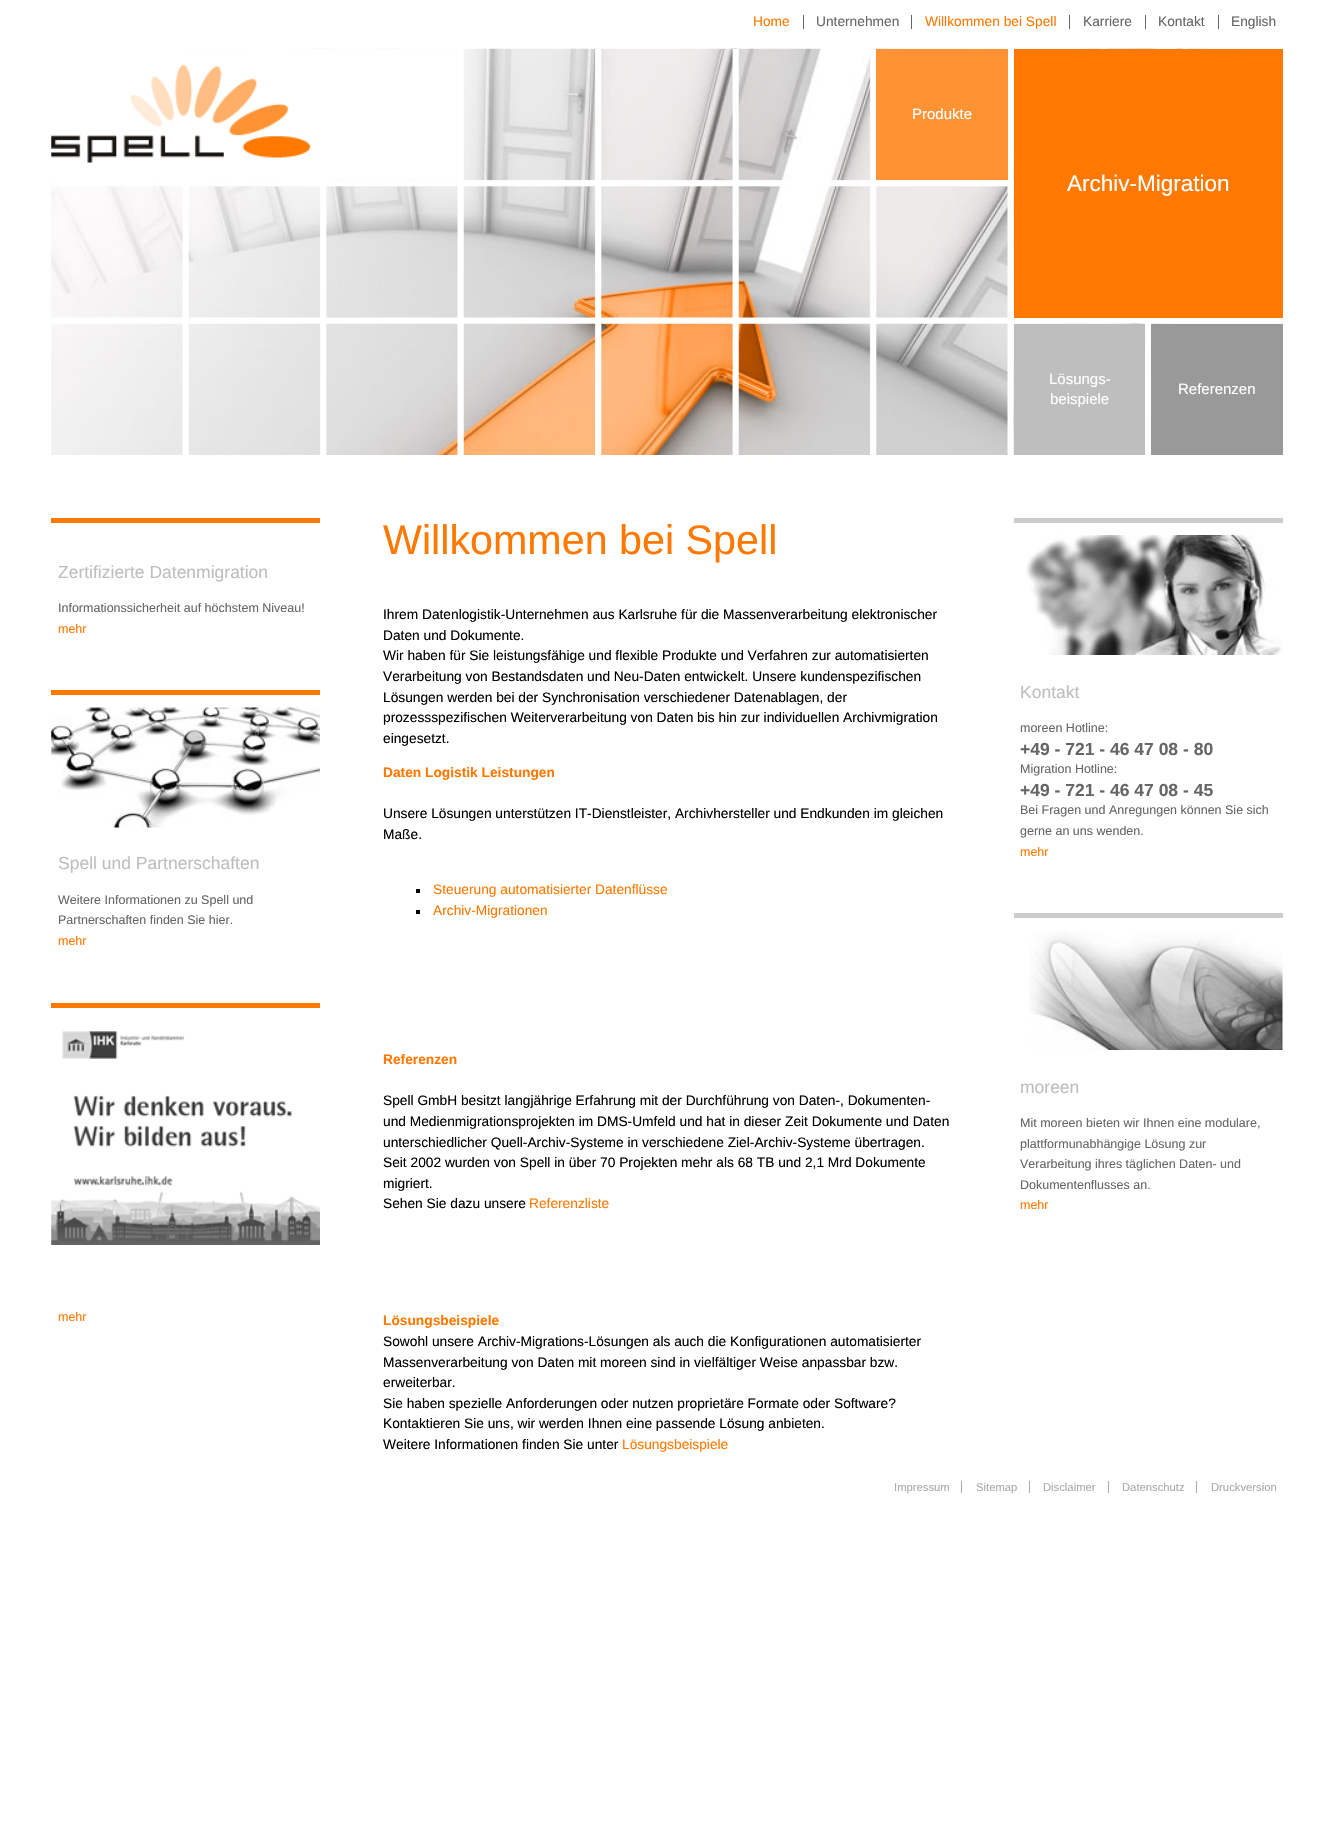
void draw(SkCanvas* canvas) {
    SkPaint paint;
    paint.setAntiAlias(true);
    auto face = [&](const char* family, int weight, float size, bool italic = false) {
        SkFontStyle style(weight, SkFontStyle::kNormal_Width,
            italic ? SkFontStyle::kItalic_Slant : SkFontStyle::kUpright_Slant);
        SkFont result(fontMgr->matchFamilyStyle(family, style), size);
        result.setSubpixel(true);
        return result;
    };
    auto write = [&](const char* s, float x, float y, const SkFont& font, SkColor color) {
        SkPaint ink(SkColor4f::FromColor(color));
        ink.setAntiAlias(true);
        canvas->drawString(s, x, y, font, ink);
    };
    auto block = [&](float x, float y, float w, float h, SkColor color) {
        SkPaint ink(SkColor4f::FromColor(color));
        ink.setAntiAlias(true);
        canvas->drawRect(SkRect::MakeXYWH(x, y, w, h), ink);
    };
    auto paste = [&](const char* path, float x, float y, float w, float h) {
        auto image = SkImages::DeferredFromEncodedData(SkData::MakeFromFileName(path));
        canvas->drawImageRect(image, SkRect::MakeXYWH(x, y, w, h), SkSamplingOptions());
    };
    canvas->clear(SK_ColorWHITE);
    auto kFont1 = face("Liberation Sans", 400, 13.75f);
    write("Home", 753, 26, kFont1, SkColorSetRGB(255, 120, 0));
    block(803, 15, 1, 14, SkColorSetRGB(102, 102, 102));
    write("Unternehmen", 816, 26, kFont1, SkColorSetRGB(102, 102, 102));
    block(911, 15, 1, 14, SkColorSetRGB(102, 102, 102));
    write("Willkommen bei Spell", 925, 26, kFont1, SkColorSetRGB(255, 120, 0));
    block(1069, 15, 1, 14, SkColorSetRGB(102, 102, 102));
    write("Karriere", 1083, 26, kFont1, SkColorSetRGB(102, 102, 102));
    block(1145, 15, 1, 14, SkColorSetRGB(102, 102, 102));
    write("Kontakt", 1158, 26, kFont1, SkColorSetRGB(102, 102, 102));
    block(1218, 15, 1, 14, SkColorSetRGB(102, 102, 102));
    write("English", 1231, 26, kFont1, SkColorSetRGB(102, 102, 102));
    paste("pic1.png", 51, 48, 1232, 407);
    paste("pic2.png", 52, 49, 1231, 406);
    paste("pic3.png", 51, 49, 407, 131);
    block(876, 49, 132, 131, SkColorSetRGB(255, 147, 51));
    auto kFont2 = face("Liberation Sans", 400, 15);
    write("Produkte", 912, 119, kFont2, SK_ColorWHITE);
    block(1014, 49, 269, 269, SkColorSetRGB(255, 120, 0));
    auto kFont3 = face("Liberation Sans", 400, 22.5f);
    write("Archiv-Migration", 1067, 191, kFont3, SK_ColorWHITE);
    block(1014, 324, 131, 131, SkColorSetRGB(190, 190, 190));
    write("Lösungs-", 1049, 384, kFont2, SK_ColorWHITE);
    write("beispiele", 1050, 404, kFont2, SK_ColorWHITE);
    block(1151, 324, 132, 131, SkColorSetRGB(153, 153, 153));
    write("Referenzen", 1178, 394, kFont2, SK_ColorWHITE);
    block(51, 518, 269, 5, SkColorSetRGB(255, 120, 0));
    auto kFont4 = face("Liberation Sans", 400, 17.5f);
    write("Zertifizierte Datenmigration", 58, 578, kFont4, SkColorSetRGB(190, 190, 190));
    auto kFont5 = face("Liberation Sans", 400, 12.5f);
    write("Informationssicherheit auf höchstem Niveau!", 58, 612, kFont5, SkColorSetRGB(102, 102, 102));
    write("mehr", 58, 633, kFont5, SkColorSetRGB(255, 120, 0));
    block(51, 690, 269, 5, SkColorSetRGB(255, 120, 0));
    paste("pic4.png", 51, 707, 269, 121);
    write("Spell und Partnerschaften", 58, 869, kFont4, SkColorSetRGB(190, 190, 190));
    write("Weitere Informationen zu Spell und", 58, 904, kFont5, SkColorSetRGB(102, 102, 102));
    write("Partnerschaften finden Sie hier.", 58, 924, kFont5, SkColorSetRGB(102, 102, 102));
    write("mehr", 58, 945, kFont5, SkColorSetRGB(255, 120, 0));
    block(51, 1003, 269, 5, SkColorSetRGB(255, 120, 0));
    paste("pic5.png", 51, 1031, 269, 214);
    write("mehr", 58, 1321, kFont5, SkColorSetRGB(255, 120, 0));
    auto kFont6 = face("Liberation Sans", 400, 41.25f);
    write("Willkommen bei Spell", 383, 554, kFont6, SkColorSetRGB(255, 120, 0));
    write("Ihrem Datenlogistik-Unternehmen aus Karlsruhe für die Massenverarbeitung elektronischer", 383, 619, kFont1, SK_ColorBLACK);
    write("Daten und Dokumente.", 383, 640, kFont1, SK_ColorBLACK);
    write("Wir haben für Sie leistungsfähige und flexible Produkte und Verfahren zur automatisierten", 383, 660, kFont1, SK_ColorBLACK);
    write("Verarbeitung von Bestandsdaten und Neu-Daten entwickelt. Unsere kundenspezifischen", 383, 681, kFont1, SK_ColorBLACK);
    write("Lösungen werden bei der Synchronisation verschiedener Datenablagen, der", 383, 702, kFont1, SK_ColorBLACK);
    write("prozessspezifischen Weiterverarbeitung von Daten bis hin zur individuellen Archivmigration", 383, 722, kFont1, SK_ColorBLACK);
    write("eingesetzt.", 383, 743, kFont1, SK_ColorBLACK);
    auto kFont7 = face("Liberation Sans", 700, 13.75f);
    write("Daten Logistik Leistungen", 383, 777, kFont7, SkColorSetRGB(255, 120, 0));
    write("Unsere Lösungen unterstützen IT-Dienstleister, Archivhersteller und Endkunden im gleichen", 383, 818, kFont1, SK_ColorBLACK);
    write("Maße.", 383, 839, kFont1, SK_ColorBLACK);
    block(416, 889, 4, 4, SK_ColorBLACK);
    write("Steuerung automatisierter Datenflüsse", 433, 894, kFont1, SkColorSetRGB(255, 120, 0));
    block(416, 910, 4, 4, SK_ColorBLACK);
    write("Archiv-Migrationen", 433, 915, kFont1, SkColorSetRGB(255, 120, 0));
    write("Referenzen", 383, 1064, kFont7, SkColorSetRGB(255, 120, 0));
    write("Spell GmbH besitzt langjährige Erfahrung mit der Durchführung von Daten-, Dokumenten-", 383, 1105, kFont1, SK_ColorBLACK);
    write("und Medienmigrationsprojekten im DMS-Umfeld und hat in dieser Zeit Dokumente und Daten", 383, 1126, kFont1, SK_ColorBLACK);
    write("unterschiedlicher Quell-Archiv-Systeme in verschiedene Ziel-Archiv-Systeme übertragen.", 383, 1147, kFont1, SK_ColorBLACK);
    write("Seit 2002 wurden von Spell in über 70 Projekten mehr als 68 TB und 2,1 Mrd Dokumente", 383, 1167, kFont1, SK_ColorBLACK);
    write("migriert.", 383, 1188, kFont1, SK_ColorBLACK);
    write("Sehen Sie dazu unsere", 383, 1208, kFont1, SK_ColorBLACK);
    write("Referenzliste", 529, 1208, kFont1, SkColorSetRGB(255, 120, 0));
    write("Lösungsbeispiele", 383, 1325, kFont7, SkColorSetRGB(255, 120, 0));
    write("Sowohl unsere Archiv-Migrations-Lösungen als auch die Konfigurationen automatisierter", 383, 1346, kFont1, SK_ColorBLACK);
    write("Massenverarbeitung von Daten mit moreen sind in vielfältiger Weise anpassbar bzw.", 383, 1367, kFont1, SK_ColorBLACK);
    write("erweiterbar.", 383, 1387, kFont1, SK_ColorBLACK);
    write("Sie haben spezielle Anforderungen oder nutzen proprietäre Formate oder Software?", 383, 1408, kFont1, SK_ColorBLACK);
    write("Kontaktieren Sie uns, wir werden Ihnen eine passende Lösung anbieten.", 383, 1428, kFont1, SK_ColorBLACK);
    write("Weitere Informationen finden Sie unter", 383, 1449, kFont1, SK_ColorBLACK);
    write("Lösungsbeispiele", 622, 1449, kFont1, SkColorSetRGB(255, 120, 0));
    block(1014, 518, 269, 5, SkColorSetRGB(204, 204, 204));
    paste("pic6.png", 1026, 535, 256, 120);
    write("Kontakt", 1020, 698, kFont4, SkColorSetRGB(190, 190, 190));
    write("moreen Hotline:", 1020, 732, kFont5, SkColorSetRGB(102, 102, 102));
    auto kFont8 = face("Liberation Sans", 700, 17.5f);
    write("+49 - 721 - 46 47 08 - 80", 1020, 755, kFont8, SkColorSetRGB(102, 102, 102));
    write("Migration Hotline:", 1020, 773, kFont5, SkColorSetRGB(102, 102, 102));
    write("+49 - 721 - 46 47 08 - 45", 1020, 796, kFont8, SkColorSetRGB(102, 102, 102));
    write("Bei Fragen und Anregungen können Sie sich", 1020, 814, kFont5, SkColorSetRGB(102, 102, 102));
    write("gerne an uns wenden.", 1020, 835, kFont5, SkColorSetRGB(102, 102, 102));
    write("mehr", 1020, 856, kFont5, SkColorSetRGB(255, 120, 0));
    block(1014, 913, 269, 5, SkColorSetRGB(204, 204, 204));
    paste("pic7.png", 1029, 931, 254, 119);
    write("moreen", 1020, 1093, kFont4, SkColorSetRGB(190, 190, 190));
    write("Mit moreen bieten wir Ihnen eine modulare,", 1020, 1127, kFont5, SkColorSetRGB(102, 102, 102));
    write("plattformunabhängige Lösung zur", 1020, 1148, kFont5, SkColorSetRGB(102, 102, 102));
    write("Verarbeitung ihres täglichen Daten- und", 1020, 1168, kFont5, SkColorSetRGB(102, 102, 102));
    write("Dokumentenflusses an.", 1020, 1189, kFont5, SkColorSetRGB(102, 102, 102));
    write("mehr", 1020, 1209, kFont5, SkColorSetRGB(255, 120, 0));
    auto kFont9 = face("Liberation Sans", 400, 11.25f);
    write("Impressum", 894, 1491, kFont9, SkColorSetRGB(170, 170, 170));
    block(961, 1481, 1, 12, SkColorSetRGB(170, 170, 170));
    write("Sitemap", 976, 1491, kFont9, SkColorSetRGB(170, 170, 170));
    block(1029, 1481, 1, 12, SkColorSetRGB(170, 170, 170));
    write("Disclaimer", 1043, 1491, kFont9, SkColorSetRGB(170, 170, 170));
    block(1108, 1481, 1, 12, SkColorSetRGB(170, 170, 170));
    write("Datenschutz", 1122, 1491, kFont9, SkColorSetRGB(170, 170, 170));
    block(1196, 1481, 1, 12, SkColorSetRGB(170, 170, 170));
    write("Druckversion", 1211, 1491, kFont9, SkColorSetRGB(170, 170, 170));
}
